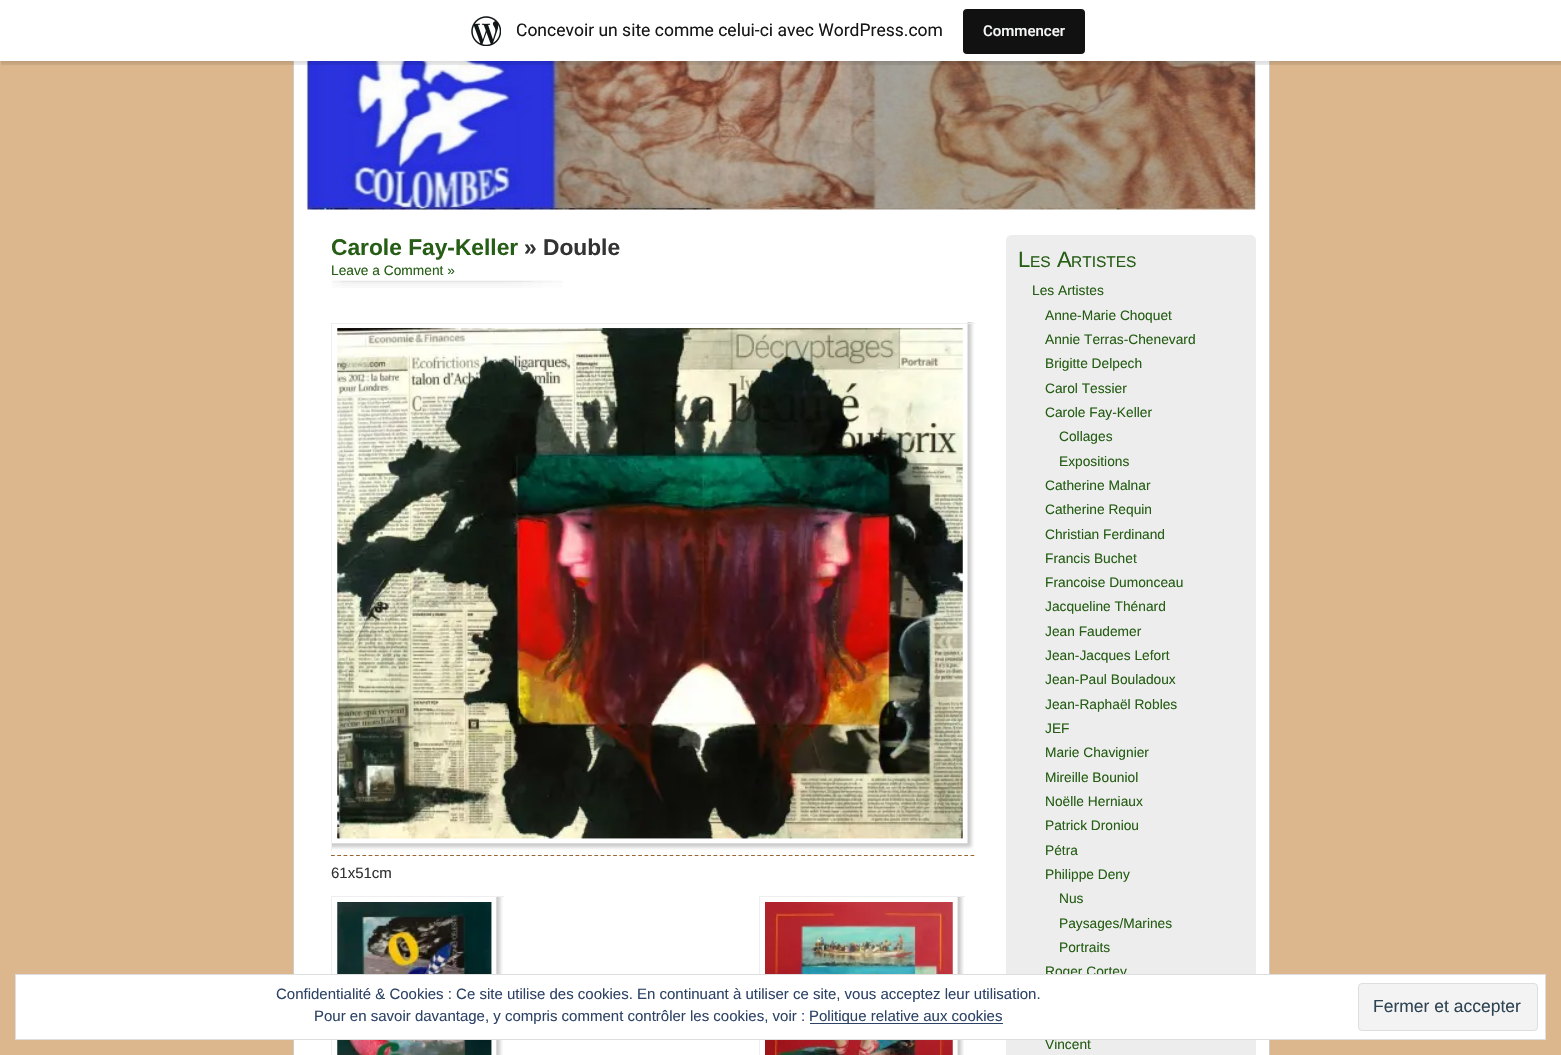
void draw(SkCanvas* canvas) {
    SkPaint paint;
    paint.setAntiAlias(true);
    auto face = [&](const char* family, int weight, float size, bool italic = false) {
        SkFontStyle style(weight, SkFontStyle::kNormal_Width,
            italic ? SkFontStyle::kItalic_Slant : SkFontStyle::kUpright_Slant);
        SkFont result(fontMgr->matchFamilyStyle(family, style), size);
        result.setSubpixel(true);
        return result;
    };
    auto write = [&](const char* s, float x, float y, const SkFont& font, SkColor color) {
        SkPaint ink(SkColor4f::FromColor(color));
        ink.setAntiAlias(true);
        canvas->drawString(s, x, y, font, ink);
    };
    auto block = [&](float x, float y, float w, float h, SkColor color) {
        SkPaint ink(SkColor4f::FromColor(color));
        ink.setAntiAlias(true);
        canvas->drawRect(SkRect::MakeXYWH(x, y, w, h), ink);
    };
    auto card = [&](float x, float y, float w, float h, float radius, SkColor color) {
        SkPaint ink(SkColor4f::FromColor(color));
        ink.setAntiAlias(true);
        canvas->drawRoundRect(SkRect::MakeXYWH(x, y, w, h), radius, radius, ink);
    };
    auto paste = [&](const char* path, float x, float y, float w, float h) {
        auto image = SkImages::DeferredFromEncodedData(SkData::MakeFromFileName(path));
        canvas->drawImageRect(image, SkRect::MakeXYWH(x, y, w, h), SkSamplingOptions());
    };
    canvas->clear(SkColorSetRGB(220, 183, 141));
    block(294, 61, 975, 994, SK_ColorWHITE);
    paint.setStyle(SkPaint::kStroke_Style);
    paint.setStrokeWidth(1);
    paint.setColor(SkColorSetRGB(204, 204, 204));
    canvas->drawRect(SkRect::MakeXYWH(293.5f, -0.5f, 976, 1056), paint);
    paste("pic2.png", 306, 61, 951, 149);
    paint.setStyle(SkPaint::kFill_Style);
    paint.setColor(SkColorSetARGB(13, 0, 0, 0));
    paint.setMaskFilter(SkMaskFilter::MakeBlur(kNormal_SkBlurStyle, 1));
    canvas->drawRect(SkRect::MakeXYWH(0, 1, 1561, 62), paint);
    paint.setMaskFilter(nullptr);
    paint.setColor(SkColorSetARGB(20, 0, 0, 0));
    canvas->drawPath(SkPathBuilder().moveTo(1, 61).lineTo(1, 65).lineTo(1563, 65).lineTo(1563, 4).lineTo(1561, 4).lineTo(1561, 61).close().detach(), paint);
    block(0, 0, 1561, 61, SK_ColorWHITE);
    paste("pic1.png", 471, 16, 30, 30);
    auto kFont1 = face("Roboto", 400, 17.5f);
    write("Concevoir un site comme celui-ci avec WordPress.com", 516, 36, kFont1, SkColorSetRGB(23, 23, 23));
    card(963, 9, 122, 45, 4, SkColorSetRGB(17, 17, 17));
    auto kFont2 = face("Roboto", 500, 15);
    write("Commencer", 983, 36, kFont2, SkColorSetRGB(246, 247, 247));
    auto kFont3 = face("Liberation Sans", 700, 22.75f);
    write("Carole Fay-Keller", 331, 255, kFont3, SkColorSetRGB(38, 94, 21));
    write("» Double", 524, 255, kFont3, SkColorSetRGB(51, 51, 51));
    paste("pic3.png", 331, 280, 232, 8);
    auto kFont4 = face("Liberation Sans", 400, 13.75f);
    write("Leave a Comment »", 331, 275, kFont4, SkColorSetRGB(38, 94, 21));
    paste("pic4.png", 332, 322, 642, 528);
    block(331, 323, 644, 1, SkColorSetRGB(238, 238, 238));
    block(331, 323, 1, 528, SkColorSetRGB(238, 238, 238));
    paste("pic5.png", 337, 328, 626, 511);
    paint.setStyle(SkPaint::kStroke_Style);
    paint.setStrokeWidth(1.2f);
    paint.setColor(SkColorSetRGB(153, 102, 51));
    paint.setPathEffect(SkDashPathEffect::Make({{3.75f, 2.52f}}, 0));
    canvas->drawPath(SkPathBuilder().moveTo(331, 855.5f).lineTo(975, 855.5f).detach(), paint);
    paint.setPathEffect(nullptr);
    auto kFont5 = face("Liberation Sans", 400, 15);
    write("61x51cm", 331, 878, kFont5, SkColorSetRGB(51, 51, 51));
    block(331, 896, 173, 1, SkColorSetRGB(238, 238, 238));
    block(331, 896, 1, 159, SkColorSetRGB(238, 238, 238));
    paste("pic6.png", 337, 897, 166, 158);
    paste("pic7.png", 337, 902, 155, 153);
    block(759, 896, 206, 1, SkColorSetRGB(238, 238, 238));
    block(759, 896, 1, 159, SkColorSetRGB(238, 238, 238));
    paste("pic8.png", 765, 897, 199, 158);
    paste("pic9.png", 952, 902, 1, 153);
    paint.setStyle(SkPaint::kFill_Style);
    paint.setColor(SkColorSetRGB(237, 237, 237));
    canvas->drawPath(SkPathBuilder().moveTo(1012, 235).lineTo(1250, 235).cubicTo(1253.5f, 235, 1256, 237.5f, 1256, 241).lineTo(1256, 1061).lineTo(1006, 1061).lineTo(1006, 241).cubicTo(1006, 237.5f, 1008.5f, 235, 1012, 235).close().detach(), paint);
    auto kFont6 = face("Liberation Sans", 400, 22);
    write("L", 1018, 267, kFont6, SkColorSetRGB(38, 94, 21));
    auto kFont7 = face("Liberation Sans", 400, 15.5f);
    write("ES", 1030, 267, kFont7, SkColorSetRGB(38, 94, 21));
    write("A", 1057, 267, kFont6, SkColorSetRGB(38, 94, 21));
    write("RTISTES", 1071, 267, kFont7, SkColorSetRGB(38, 94, 21));
    write("Les Artistes", 1032, 295, kFont4, SkColorSetRGB(38, 94, 21));
    write("Anne-Marie Choquet", 1045, 320, kFont4, SkColorSetRGB(38, 94, 21));
    write("Annie Terras-Chenevard", 1045, 344, kFont4, SkColorSetRGB(38, 94, 21));
    write("Brigitte Delpech", 1045, 368, kFont4, SkColorSetRGB(38, 94, 21));
    write("Carol Tessier", 1045, 393, kFont4, SkColorSetRGB(38, 94, 21));
    write("Carole Fay-Keller", 1045, 417, kFont4, SkColorSetRGB(38, 94, 21));
    write("Collages", 1059, 441, kFont4, SkColorSetRGB(38, 94, 21));
    write("Expositions", 1059, 466, kFont4, SkColorSetRGB(38, 94, 21));
    write("Catherine Malnar", 1045, 490, kFont4, SkColorSetRGB(38, 94, 21));
    write("Catherine Requin", 1045, 514, kFont4, SkColorSetRGB(38, 94, 21));
    write("Christian Ferdinand", 1045, 539, kFont4, SkColorSetRGB(38, 94, 21));
    write("Francis Buchet", 1045, 563, kFont4, SkColorSetRGB(38, 94, 21));
    write("Francoise Dumonceau", 1045, 587, kFont4, SkColorSetRGB(38, 94, 21));
    write("Jacqueline Thénard", 1045, 611, kFont4, SkColorSetRGB(38, 94, 21));
    write("Jean Faudemer", 1045, 636, kFont4, SkColorSetRGB(38, 94, 21));
    write("Jean-Jacques Lefort", 1045, 660, kFont4, SkColorSetRGB(38, 94, 21));
    write("Jean-Paul Bouladoux", 1045, 684, kFont4, SkColorSetRGB(38, 94, 21));
    write("Jean-Raphaël Robles", 1045, 709, kFont4, SkColorSetRGB(38, 94, 21));
    write("JEF", 1045, 733, kFont4, SkColorSetRGB(38, 94, 21));
    write("Marie Chavignier", 1045, 757, kFont4, SkColorSetRGB(38, 94, 21));
    write("Mireille Bouniol", 1045, 782, kFont4, SkColorSetRGB(38, 94, 21));
    write("Noëlle Herniaux", 1045, 806, kFont4, SkColorSetRGB(38, 94, 21));
    write("Patrick Droniou", 1045, 830, kFont4, SkColorSetRGB(38, 94, 21));
    write("Pétra", 1045, 855, kFont4, SkColorSetRGB(38, 94, 21));
    write("Philippe Deny", 1045, 879, kFont4, SkColorSetRGB(38, 94, 21));
    write("Nus", 1059, 903, kFont4, SkColorSetRGB(38, 94, 21));
    write("Paysages/Marines", 1059, 928, kFont4, SkColorSetRGB(38, 94, 21));
    write("Portraits", 1059, 952, kFont4, SkColorSetRGB(38, 94, 21));
    write("Roger Cortey", 1045, 976, kFont4, SkColorSetRGB(38, 94, 21));
    write("Vincent", 1045, 1049, kFont4, SkColorSetRGB(38, 94, 21));
    paint.setColor(SK_ColorWHITE);
    canvas->drawRect(SkRect::MakeXYWH(15.5f, 974.5f, 1530, 65), paint);
    paint.setStyle(SkPaint::kStroke_Style);
    paint.setStrokeWidth(1);
    paint.setColor(SkColorSetRGB(222, 222, 222));
    canvas->drawRect(SkRect::MakeXYWH(15.5f, 974.5f, 1530, 65), paint);
    write("Confidentialité & Cookies : Ce site utilise des cookies. En continuant à utiliser ce site, vous acceptez leur utilisation.", 276, 999, kFont5, SkColorSetRGB(46, 68, 103));
    paint.setStyle(SkPaint::kFill_Style);
    paint.setColor(SkColorSetRGB(243, 243, 243));
    canvas->drawRoundRect(SkRect::MakeXYWH(1358.5f, 983.5f, 179, 47), 3.5f, 3.5f, paint);
    paint.setStyle(SkPaint::kStroke_Style);
    paint.setColor(SkColorSetRGB(222, 222, 222));
    canvas->drawRoundRect(SkRect::MakeXYWH(1358.5f, 983.5f, 179, 47), 3.5f, 3.5f, paint);
    auto kFont8 = face("Liberation Sans", 400, 17.5f);
    write("Fermer et accepter", 1373, 1012, kFont8, SkColorSetRGB(46, 68, 83));
    write("Pour en savoir davantage, y compris comment contrôler les cookies, voir :", 314, 1021, kFont5, SkColorSetRGB(46, 68, 103));
    block(810, 1023, 193, 1, SkColorSetRGB(46, 68, 103));
    write("Politique relative aux cookies", 809, 1021, kFont5, SkColorSetRGB(46, 68, 103));
}
